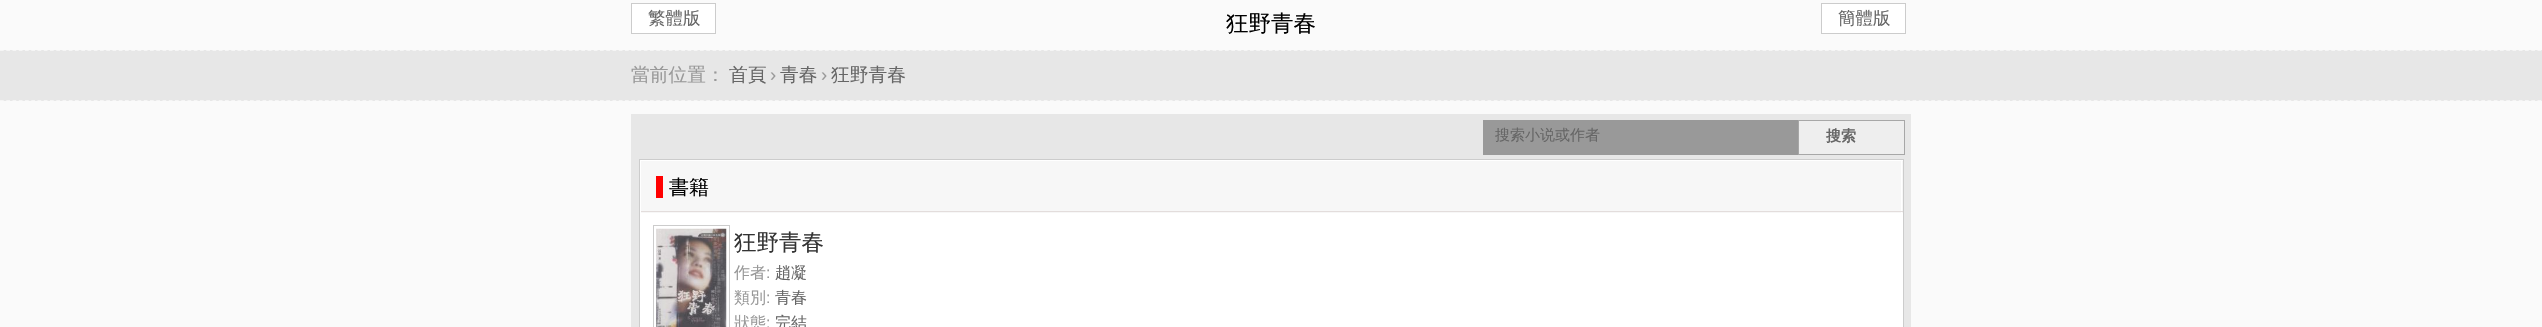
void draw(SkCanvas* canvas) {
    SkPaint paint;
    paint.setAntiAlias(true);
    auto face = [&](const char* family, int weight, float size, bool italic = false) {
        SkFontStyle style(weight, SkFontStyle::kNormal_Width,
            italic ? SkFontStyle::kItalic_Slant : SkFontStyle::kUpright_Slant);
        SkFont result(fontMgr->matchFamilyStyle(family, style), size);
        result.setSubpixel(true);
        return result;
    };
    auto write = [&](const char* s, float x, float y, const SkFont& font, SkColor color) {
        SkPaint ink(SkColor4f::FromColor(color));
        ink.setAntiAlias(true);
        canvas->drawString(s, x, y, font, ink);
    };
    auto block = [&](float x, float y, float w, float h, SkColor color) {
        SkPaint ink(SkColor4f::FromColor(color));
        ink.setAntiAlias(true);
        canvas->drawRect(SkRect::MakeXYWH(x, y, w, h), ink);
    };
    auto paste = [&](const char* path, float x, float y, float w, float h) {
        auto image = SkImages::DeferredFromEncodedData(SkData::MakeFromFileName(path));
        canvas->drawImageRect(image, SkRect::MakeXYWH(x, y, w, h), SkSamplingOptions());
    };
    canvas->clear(SkColorSetRGB(250, 250, 250));
    paint.setColor(SK_ColorWHITE);
    canvas->drawRect(SkRect::MakeXYWH(631.5f, 3.5f, 84, 30), paint);
    paint.setStyle(SkPaint::kStroke_Style);
    paint.setStrokeWidth(1);
    paint.setColor(SkColorSetRGB(204, 204, 204));
    canvas->drawRect(SkRect::MakeXYWH(631.5f, 3.5f, 84, 30), paint);
    auto kFont1 = face("WenQuanYi Zen Hei", 500, 17.5f);
    write("繁體版", 648, 24, kFont1, SkColorSetRGB(102, 102, 102));
    auto kFont2 = face("WenQuanYi Zen Hei", 500, 22.5f);
    write("狂野青春", 1226, 31, kFont2, SK_ColorBLACK);
    paint.setStyle(SkPaint::kFill_Style);
    paint.setColor(SK_ColorWHITE);
    canvas->drawRect(SkRect::MakeXYWH(1821.5f, 3.5f, 84, 30), paint);
    paint.setStyle(SkPaint::kStroke_Style);
    paint.setColor(SkColorSetRGB(204, 204, 204));
    canvas->drawRect(SkRect::MakeXYWH(1821.5f, 3.5f, 84, 30), paint);
    write("簡體版", 1838, 24, kFont1, SkColorSetRGB(102, 102, 102));
    block(0, 50, 2542, 51, SkColorSetRGB(231, 231, 231));
    paint.setStrokeWidth(1.2f);
    paint.setColor(SkColorSetRGB(245, 245, 245));
    paint.setPathEffect(SkDashPathEffect::Make({{3.75f, 2.5f}}, 0));
    canvas->drawPath(SkPathBuilder().moveTo(0, 50.5f).lineTo(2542.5f, 50.5f).detach(), paint);
    paint.setPathEffect(nullptr);
    paint.setPathEffect(SkDashPathEffect::Make({{3.75f, 2.5f}}, 0));
    canvas->drawPath(SkPathBuilder().moveTo(0, 100.5f).lineTo(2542.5f, 100.5f).detach(), paint);
    paint.setPathEffect(nullptr);
    auto kFont3 = face("WenQuanYi Zen Hei", 500, 18.75f);
    write("當前位置：", 631, 81, kFont3, SkColorSetRGB(153, 153, 153));
    write("首頁", 729, 81, kFont3, SkColorSetRGB(102, 102, 102));
    auto kFont4 = face("Liberation Sans", 400, 18.75f);
    write("›", 770, 81, kFont4, SkColorSetRGB(153, 153, 153));
    write("青春", 780, 81, kFont3, SkColorSetRGB(102, 102, 102));
    write("›", 821, 81, kFont4, SkColorSetRGB(153, 153, 153));
    write("狂野青春", 831, 81, kFont3, SkColorSetRGB(102, 102, 102));
    block(631, 114, 1280, 213, SkColorSetRGB(231, 231, 231));
    block(1483, 120, 315, 35, SkColorSetRGB(153, 153, 153));
    auto kFont5 = face("WenQuanYi Zen Hei", 500, 15);
    write("搜索小说或作者", 1495, 140, kFont5, SkColorSetRGB(102, 102, 102));
    paint.setStyle(SkPaint::kFill_Style);
    paint.setColor(SkColorSetRGB(238, 238, 238));
    canvas->drawRect(SkRect::MakeXYWH(1798.5f, 120.5f, 106, 34), paint);
    paint.setStyle(SkPaint::kStroke_Style);
    paint.setStrokeWidth(1);
    paint.setColor(SkColorSetRGB(167, 167, 167));
    canvas->drawRect(SkRect::MakeXYWH(1798.5f, 120.5f, 106, 34), paint);
    auto kFont6 = face("WenQuanYi Zen Hei", 700, 15);
    write("搜索", 1826, 141, kFont6, SkColorSetRGB(102, 102, 102));
    block(640, 213, 1263, 114, SK_ColorWHITE);
    paint.setColor(SkColorSetRGB(204, 204, 204));
    canvas->drawRect(SkRect::MakeXYWH(639.5f, 159.5f, 1264, 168), paint);
    block(641, 161, 1262, 52, SkColorSetRGB(247, 247, 247));
    block(640, 160, 1263, 1, SK_ColorWHITE);
    block(1901, 160, 1, 53, SK_ColorWHITE);
    block(640, 211, 1263, 1, SkColorSetRGB(227, 221, 220));
    block(640, 160, 1, 53, SK_ColorWHITE);
    auto kFont7 = face("WenQuanYi Zen Hei", 500, 20);
    write("書籍", 669, 194, kFont7, SK_ColorBLACK);
    block(656, 176, 7, 22, SkColorSetRGB(255, 0, 0));
    canvas->drawRect(SkRect::MakeXYWH(653.5f, 225.5f, 76, 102), paint);
    paste("pic1.png", 656, 228, 71, 99);
    write("狂野青春", 734, 250, kFont2, SkColorSetRGB(51, 51, 51));
    auto kFont8 = face("WenQuanYi Zen Hei", 500, 16);
    write("作者", 734, 278, kFont8, SkColorSetRGB(153, 153, 153));
    auto kFont9 = face("Liberation Sans", 400, 16);
    write(":", 766, 278, kFont9, SkColorSetRGB(153, 153, 153));
    write("趙凝", 775, 278, kFont8, SkColorSetRGB(102, 102, 102));
    write("類別", 734, 303, kFont8, SkColorSetRGB(153, 153, 153));
    write(":", 766, 303, kFont9, SkColorSetRGB(153, 153, 153));
    write("青春", 775, 303, kFont8, SkColorSetRGB(102, 102, 102));
    write("狀態", 734, 328, kFont8, SkColorSetRGB(153, 153, 153));
    write(":", 766, 328, kFont9, SkColorSetRGB(153, 153, 153));
    write("完結", 775, 328, kFont8, SkColorSetRGB(102, 102, 102));
}
